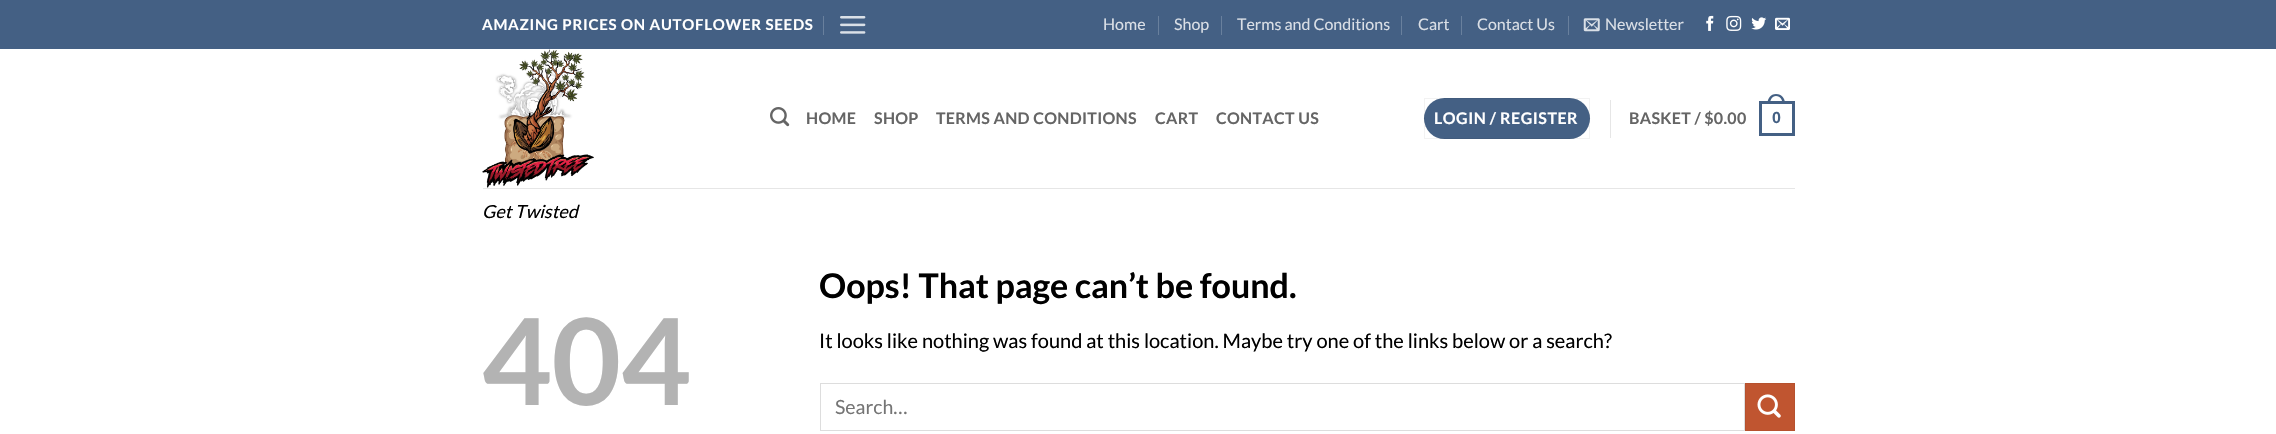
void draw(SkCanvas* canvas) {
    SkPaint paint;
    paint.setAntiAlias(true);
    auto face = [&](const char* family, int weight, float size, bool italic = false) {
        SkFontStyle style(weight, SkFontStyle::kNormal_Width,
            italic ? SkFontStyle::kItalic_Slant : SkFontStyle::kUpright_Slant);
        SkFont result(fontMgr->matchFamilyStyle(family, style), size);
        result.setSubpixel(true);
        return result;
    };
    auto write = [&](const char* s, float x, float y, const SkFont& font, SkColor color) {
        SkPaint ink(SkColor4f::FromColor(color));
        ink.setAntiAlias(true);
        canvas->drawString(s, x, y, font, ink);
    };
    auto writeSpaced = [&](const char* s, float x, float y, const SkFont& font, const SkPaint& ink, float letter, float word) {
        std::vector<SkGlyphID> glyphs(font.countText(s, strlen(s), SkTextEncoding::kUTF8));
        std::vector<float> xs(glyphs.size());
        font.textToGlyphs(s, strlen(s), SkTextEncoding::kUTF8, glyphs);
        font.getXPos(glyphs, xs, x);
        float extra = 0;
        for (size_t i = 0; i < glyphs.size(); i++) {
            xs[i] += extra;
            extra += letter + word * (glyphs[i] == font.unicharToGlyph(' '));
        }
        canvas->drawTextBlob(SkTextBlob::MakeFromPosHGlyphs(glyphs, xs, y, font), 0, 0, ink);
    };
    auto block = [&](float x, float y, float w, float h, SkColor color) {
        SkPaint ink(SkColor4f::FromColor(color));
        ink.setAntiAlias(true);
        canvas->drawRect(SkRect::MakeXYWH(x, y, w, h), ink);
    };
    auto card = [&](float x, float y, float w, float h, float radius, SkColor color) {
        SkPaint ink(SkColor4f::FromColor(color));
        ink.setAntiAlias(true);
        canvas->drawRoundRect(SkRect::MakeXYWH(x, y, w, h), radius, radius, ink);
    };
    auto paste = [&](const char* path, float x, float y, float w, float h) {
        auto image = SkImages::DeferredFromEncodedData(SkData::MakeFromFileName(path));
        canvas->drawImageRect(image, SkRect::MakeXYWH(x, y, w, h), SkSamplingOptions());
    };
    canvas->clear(SK_ColorWHITE);
    block(0, 0, 2276, 49, SkColorSetRGB(68, 96, 132));
    auto kFont1 = face("Lato", 700, 15);
    paint.setColor(SK_ColorWHITE);
    writeSpaced("AMAZING PRICES ON AUTOFLOWER SEEDS", 482, 30, kFont1, paint, 0.75f, 0);
    block(823, 16, 1, 19, SkColorSetRGB(105, 128, 157));
    paste("pic1.png", 840, 16, 26, 18);
    auto kFont2 = face("Lato", 400, 16);
    write("Home", 1103, 30, kFont2, SkColorSetRGB(218, 223, 230));
    block(1158, 16, 1, 19, SkColorSetRGB(105, 128, 157));
    write("Shop", 1174, 30, kFont2, SkColorSetRGB(218, 223, 230));
    block(1221, 16, 1, 19, SkColorSetRGB(105, 128, 157));
    write("Terms and Conditions", 1237, 30, kFont2, SkColorSetRGB(218, 223, 230));
    block(1401, 16, 1, 19, SkColorSetRGB(105, 128, 157));
    write("Cart", 1418, 30, kFont2, SkColorSetRGB(218, 223, 230));
    block(1461, 16, 1, 19, SkColorSetRGB(105, 128, 157));
    write("Contact Us", 1477, 30, kFont2, SkColorSetRGB(218, 223, 230));
    block(1568, 16, 1, 19, SkColorSetRGB(105, 128, 157));
    paste("pic2.png", 1583, 18, 17, 14);
    write("Newsletter", 1605, 30, kFont2, SkColorSetRGB(218, 223, 230));
    paste("pic3.png", 1706, 15, 8, 16);
    paste("pic4.png", 1726, 15, 16, 16);
    paste("pic5.png", 1751, 17, 16, 13);
    paste("pic6.png", 1775, 17, 15, 13);
    paste("pic7.png", 770, 107, 20, 20);
    auto kFont3 = face("Lato", 700, 16);
    paint.setColor(SkColorSetRGB(101, 101, 101));
    writeSpaced("HOME", 806, 124, kFont3, paint, 0.3f, 0);
    writeSpaced("SHOP", 874, 124, kFont3, paint, 0.3f, 0);
    writeSpaced("TERMS AND CONDITIONS", 936, 124, kFont3, paint, 0.3f, 0);
    writeSpaced("CART", 1155, 124, kFont3, paint, 0.3f, 0);
    writeSpaced("CONTACT US", 1216, 124, kFont3, paint, 0.3f, 0);
    card(1424, 98, 166, 41, 20.5f, SkColorSetRGB(68, 96, 132));
    paint.setStyle(SkPaint::kStroke_Style);
    paint.setStrokeWidth(1);
    paint.setColor(SkColorSetARGB(13, 0, 0, 0));
    canvas->drawRect(SkRect::MakeXYWH(1424.5f, 98.5f, 165, 40), paint);
    paint.setStyle(SkPaint::kFill_Style);
    paint.setColor(SK_ColorWHITE);
    writeSpaced("LOGIN / REGISTER", 1434, 124, kFont3, paint, 0.5f, 0);
    block(1610, 100, 1, 38, SkColorSetRGB(230, 230, 230));
    paint.setColor(SkColorSetRGB(101, 101, 101));
    writeSpaced("BASKET / $0.00", 1629, 124, kFont3, paint, 0.3f, 0);
    paint.setStyle(SkPaint::kStroke_Style);
    paint.setStrokeWidth(3);
    paint.setColor(SkColorSetRGB(68, 96, 132));
    canvas->drawRect(SkRect::MakeXYWH(1760.5f, 102.5f, 33, 32), paint);
    paint.setStyle(SkPaint::kFill_Style);
    canvas->drawPath(SkPathBuilder(SkPathFillType::kEvenOdd).moveTo(1776, 94).cubicTo(1782, 94, 1785, 98.5f, 1785, 104).lineTo(1767.5f, 104).cubicTo(1767.5f, 98.5f, 1770.5f, 94, 1776, 94).close().moveTo(1776, 96).cubicTo(1780.5f, 96, 1782.5f, 100, 1782.5f, 104).lineTo(1770, 104).cubicTo(1770, 100, 1772, 96, 1776, 96).close().detach(), paint);
    auto kFont4 = face("Liberation Sans", 700, 16);
    writeSpaced("0", 1772, 123, kFont4, paint, 0.3f, 0);
    paste("pic8.png", 482, 49, 112, 139);
    auto kFont5 = face("Lato", 400, 18, true);
    write("Get Twisted", 482, 218, kFont5, SK_ColorBLACK);
    block(483, 188, 1312, 1, SkColorSetRGB(230, 230, 230));
    auto kFont6 = face("Lato", 700, 120);
    write("404", 482, 405, kFont6, SkColorSetRGB(179, 179, 179));
    auto kFont7 = face("Lato", 700, 34);
    write("Oops! That page can’t be found.", 819, 298, kFont7, SK_ColorBLACK);
    auto kFont8 = face("Lato", 400, 20);
    write("It looks like nothing was found at this location. Maybe try one of the links below or a search?", 819, 348, kFont8, SK_ColorBLACK);
    paint.setStyle(SkPaint::kStroke_Style);
    paint.setStrokeWidth(1);
    paint.setColor(SkColorSetRGB(221, 221, 221));
    canvas->drawRect(SkRect::MakeXYWH(820.5f, 383.5f, 924, 47), paint);
    auto kFont9 = face("Lato", 400, 19.5f);
    write("Search…", 835, 414, kFont9, SkColorSetRGB(117, 117, 117));
    paint.setStyle(SkPaint::kFill_Style);
    paint.setColor(SkColorSetRGB(192, 85, 48));
    canvas->drawRect(SkRect::MakeXYWH(1745.5f, 383.5f, 49, 47), paint);
    paint.setStyle(SkPaint::kStroke_Style);
    paint.setColor(SkColorSetRGB(182, 81, 46));
    canvas->drawRect(SkRect::MakeXYWH(1745.5f, 383.5f, 49, 47), paint);
    paste("pic9.png", 1757, 394, 24, 24);
}
